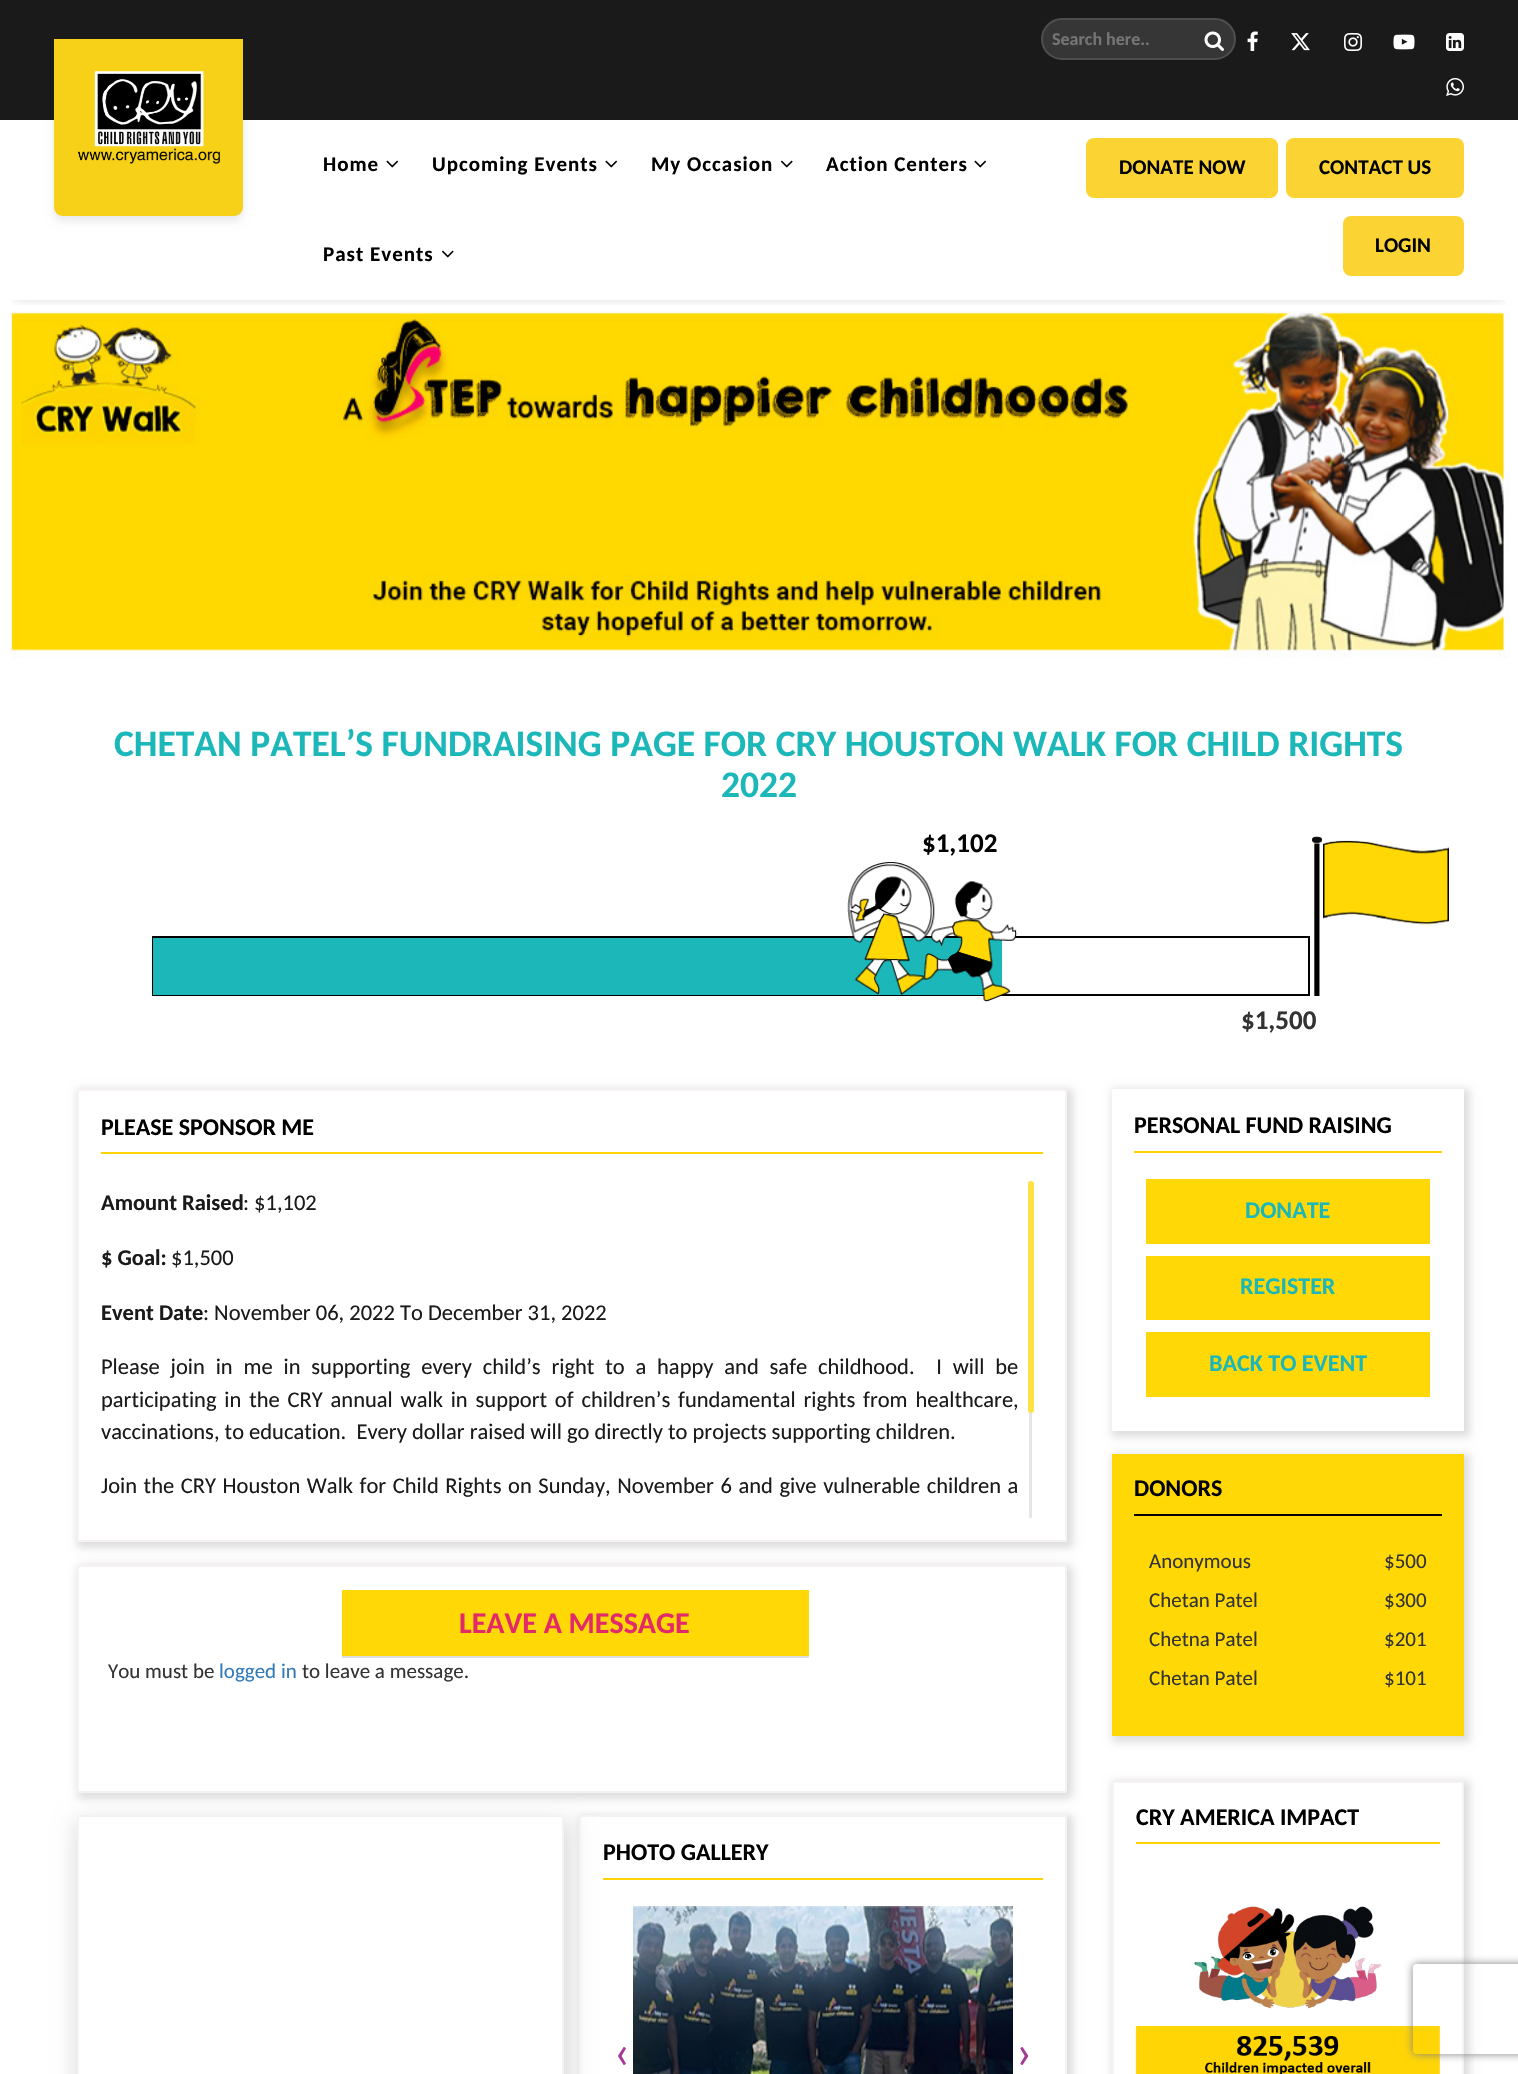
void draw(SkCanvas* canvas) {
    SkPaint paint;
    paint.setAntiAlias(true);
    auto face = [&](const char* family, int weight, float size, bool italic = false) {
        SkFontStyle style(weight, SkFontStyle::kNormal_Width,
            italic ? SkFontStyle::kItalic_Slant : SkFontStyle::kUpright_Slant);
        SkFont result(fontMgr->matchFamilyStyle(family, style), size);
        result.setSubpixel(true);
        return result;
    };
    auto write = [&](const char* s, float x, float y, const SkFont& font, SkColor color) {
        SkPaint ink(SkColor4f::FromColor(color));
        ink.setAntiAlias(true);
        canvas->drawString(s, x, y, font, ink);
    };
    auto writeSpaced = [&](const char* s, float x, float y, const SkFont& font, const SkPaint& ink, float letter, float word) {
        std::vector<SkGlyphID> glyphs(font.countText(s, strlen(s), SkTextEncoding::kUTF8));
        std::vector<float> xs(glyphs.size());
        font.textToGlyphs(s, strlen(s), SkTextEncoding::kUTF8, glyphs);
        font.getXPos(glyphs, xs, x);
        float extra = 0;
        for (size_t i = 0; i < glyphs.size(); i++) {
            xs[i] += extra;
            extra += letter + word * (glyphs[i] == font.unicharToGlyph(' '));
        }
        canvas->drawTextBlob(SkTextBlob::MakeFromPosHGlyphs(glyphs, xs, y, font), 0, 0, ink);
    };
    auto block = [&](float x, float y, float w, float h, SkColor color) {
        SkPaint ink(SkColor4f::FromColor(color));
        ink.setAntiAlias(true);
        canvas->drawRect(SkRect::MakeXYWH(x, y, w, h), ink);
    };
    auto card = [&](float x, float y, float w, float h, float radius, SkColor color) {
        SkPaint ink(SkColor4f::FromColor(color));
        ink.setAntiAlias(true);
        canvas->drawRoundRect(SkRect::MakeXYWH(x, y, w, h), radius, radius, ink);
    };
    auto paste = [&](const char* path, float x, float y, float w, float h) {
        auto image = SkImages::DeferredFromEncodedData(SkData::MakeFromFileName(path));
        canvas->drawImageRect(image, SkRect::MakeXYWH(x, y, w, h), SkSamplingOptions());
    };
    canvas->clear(SK_ColorWHITE);
    block(0, 0, 1518, 120, SkColorSetRGB(26, 26, 26));
    paint.setColor(SkColorSetRGB(54, 54, 54));
    canvas->drawRoundRect(SkRect::MakeXYWH(1042, 19, 193, 40), 20, 20, paint);
    paint.setStyle(SkPaint::kStroke_Style);
    paint.setStrokeWidth(2);
    paint.setColor(SkColorSetRGB(78, 78, 78));
    canvas->drawRoundRect(SkRect::MakeXYWH(1042, 19, 193, 40), 20, 20, paint);
    auto kFont1 = face("Carlito", 700, 18);
    write("Search here..", 1052, 45, kFont1, SkColorSetRGB(117, 117, 117));
    paste("pic1.png", 1204, 31, 20, 20);
    paste("pic2.png", 1247, 31, 11, 20);
    paste("pic3.png", 1291, 33, 19, 18);
    paste("pic4.png", 1344, 33, 18, 18);
    paste("pic5.png", 1393, 34, 22, 16);
    paste("pic6.png", 1446, 33, 18, 18);
    paste("pic7.png", 1446, 77, 18, 19);
    paste("pic11.png", 10, 311, 1500, 348);
    canvas->save();
    canvas->clipRect(SkRect::MakeXYWH(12, 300, 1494, 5));
    paint.setStyle(SkPaint::kFill_Style);
    paint.setColor(SkColorSetARGB(153, 0, 0, 0));
    paint.setMaskFilter(SkMaskFilter::MakeBlur(kNormal_SkBlurStyle, 7.5f));
    canvas->drawRect(SkRect::MakeXYWH(15, 141, 1488, 150), paint);
    paint.setMaskFilter(nullptr);
    canvas->restore();
    paint.setColor(SkColorSetARGB(23, 0, 0, 0));
    paint.setMaskFilter(SkMaskFilter::MakeBlur(kNormal_SkBlurStyle, 4.5f));
    canvas->drawRoundRect(SkRect::MakeXYWH(54, 44, 189, 177), 9, 9, paint);
    paint.setMaskFilter(nullptr);
    paint.setColor(SkColorSetRGB(247, 209, 23));
    canvas->drawPath(SkPathBuilder().moveTo(54, 39).lineTo(243, 39).lineTo(243, 207).cubicTo(243, 212, 239, 216, 234, 216).lineTo(63, 216).cubicTo(58, 216, 54, 212, 54, 207).close().detach(), paint);
    paste("pic8.png", 78, 71, 142, 93);
    auto kFont2 = face("Carlito", 700, 21);
    paint.setColor(SK_ColorBLACK);
    writeSpaced("Home", 323, 171, kFont2, paint, 1, 0);
    paste("pic9.png", 386, 160, 13, 8);
    writeSpaced("Upcoming Events", 432, 171, kFont2, paint, 1, 0);
    paste("pic9.png", 605, 160, 13, 8);
    writeSpaced("My Occasion", 651, 171, kFont2, paint, 1, 0);
    paste("pic10.png", 780, 160, 13, 8);
    writeSpaced("Action Centers", 826, 171, kFont2, paint, 1, 0);
    paste("pic9.png", 974, 160, 13, 8);
    writeSpaced("Past Events", 323, 261, kFont2, paint, 1, 0);
    paste("pic10.png", 441, 250, 13, 8);
    card(1086, 138, 192, 60, 8, SkColorSetRGB(251, 212, 51));
    write("DONATE NOW", 1119, 174, kFont2, SK_ColorBLACK);
    card(1286, 138, 178, 60, 8, SkColorSetRGB(251, 212, 51));
    write("CONTACT US", 1319, 174, kFont2, SK_ColorBLACK);
    card(1343, 216, 121, 60, 8, SkColorSetRGB(251, 212, 51));
    write("LOGIN", 1375, 252, kFont2, SK_ColorBLACK);
    auto kFont3 = face("Carlito", 700, 37.5f);
    write("CHETAN PATEL’S FUNDRAISING PAGE FOR CRY HOUSTON WALK FOR CHILD RIGHTS", 114, 756, kFont3, SkColorSetRGB(28, 183, 184));
    write("2022", 721, 797, kFont3, SkColorSetRGB(28, 183, 184));
    paint.setStyle(SkPaint::kStroke_Style);
    canvas->drawRect(SkRect::MakeXYWH(153, 937, 1156, 58), paint);
    block(153, 938, 849, 57, SkColorSetRGB(28, 183, 184));
    auto kFont4 = face("Carlito", 700, 27);
    write("$1,102", 922, 852, kFont4, SK_ColorBLACK);
    paste("pic12.png", 847, 862, 170, 140);
    paste("pic13.png", 1312, 836, 137, 160);
    write("$1,500", 1241, 1029, kFont4, SkColorSetRGB(51, 51, 51));
    canvas->save();
    canvas->clipPath(SkPathBuilder(SkPathFillType::kEvenOdd).moveTo(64, 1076).lineTo(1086, 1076).lineTo(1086, 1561).lineTo(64, 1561).close().moveTo(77, 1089).lineTo(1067, 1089).lineTo(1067, 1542).lineTo(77, 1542).close().detach(), true);
    paint.setStyle(SkPaint::kFill_Style);
    paint.setColor(SkColorSetRGB(222, 222, 222));
    paint.setMaskFilter(SkMaskFilter::MakeBlur(kNormal_SkBlurStyle, 4));
    canvas->drawRect(SkRect::MakeXYWH(77, 1089, 996, 459), paint);
    paint.setMaskFilter(nullptr);
    canvas->restore();
    paint.setStyle(SkPaint::kStroke_Style);
    paint.setColor(SkColorSetRGB(247, 242, 242));
    canvas->drawRect(SkRect::MakeXYWH(78, 1090, 988, 451), paint);
    block(101, 1152, 942, 2, SkColorSetRGB(255, 212, 1));
    auto kFont5 = face("Carlito", 700, 24);
    write("PLEASE SPONSOR ME", 101, 1135, kFont5, SK_ColorBLACK);
    auto kFont6 = face("Carlito", 700, 22.5f);
    write("Amount Raised", 101, 1210, kFont6, SkColorSetRGB(26, 26, 26));
    auto kFont7 = face("Carlito", 400, 22.5f);
    write(": $1,102", 243, 1210, kFont7, SkColorSetRGB(26, 26, 26));
    write("$ Goal:", 101, 1265, kFont6, SkColorSetRGB(26, 26, 26));
    write("$1,500", 171, 1265, kFont7, SkColorSetRGB(26, 26, 26));
    write("Event Date", 101, 1320, kFont6, SkColorSetRGB(26, 26, 26));
    write(": November 06, 2022 To December 31, 2022", 203, 1320, kFont7, SkColorSetRGB(26, 26, 26));
    paint.setStyle(SkPaint::kFill_Style);
    paint.setColor(SkColorSetRGB(26, 26, 26));
    writeSpaced("Please join in me in supporting every child’s right to a happy and safe childhood.  I will be", 101, 1374, kFont7, paint, 0, 5.75f);
    writeSpaced("participating in the CRY annual walk in support of children’s fundamental rights from healthcare,", 101, 1407, kFont7, paint, 0, 2.75f);
    write("vaccinations, to education.  Every dollar raised will go directly to projects supporting children.", 101, 1439, kFont7, SkColorSetRGB(26, 26, 26));
    writeSpaced("Join the CRY Houston Walk for Child Rights on Sunday, November 6 and give vulnerable children a", 101, 1493, kFont7, paint, 0, 1.5f);
    card(1029, 1181, 3, 337, 1.5f, SkColorSetRGB(230, 230, 230));
    card(1028, 1181, 6, 232, 3, SkColorSetRGB(255, 226, 68));
    canvas->save();
    canvas->clipPath(SkPathBuilder(SkPathFillType::kEvenOdd).moveTo(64, 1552).lineTo(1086, 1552).lineTo(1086, 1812).lineTo(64, 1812).close().moveTo(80, 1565).lineTo(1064, 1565).cubicTo(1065.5f, 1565, 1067, 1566.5f, 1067, 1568).lineTo(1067, 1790).cubicTo(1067, 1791.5f, 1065.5f, 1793, 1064, 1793).lineTo(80, 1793).cubicTo(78.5f, 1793, 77, 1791.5f, 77, 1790).lineTo(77, 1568).cubicTo(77, 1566.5f, 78.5f, 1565, 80, 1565).close().detach(), true);
    paint.setColor(SkColorSetRGB(222, 222, 222));
    paint.setMaskFilter(SkMaskFilter::MakeBlur(kNormal_SkBlurStyle, 4));
    canvas->drawRoundRect(SkRect::MakeXYWH(77, 1565, 996, 234), 6, 6, paint);
    paint.setMaskFilter(nullptr);
    canvas->restore();
    paint.setStyle(SkPaint::kStroke_Style);
    paint.setColor(SkColorSetRGB(247, 242, 242));
    canvas->drawRoundRect(SkRect::MakeXYWH(78, 1566, 988, 226), 2, 2, paint);
    block(342, 1590, 467, 66, SkColorSetRGB(255, 216, 6));
    block(342, 1656, 467, 2, SkColorSetRGB(222, 222, 222));
    auto kFont8 = face("Carlito", 700, 30);
    write("LEAVE A MESSAGE", 459, 1633, kFont8, SkColorSetRGB(228, 41, 107));
    auto kFont9 = face("Carlito", 400, 21);
    write("You must be", 108, 1678, kFont9, SkColorSetRGB(51, 51, 51));
    write("logged in", 219, 1678, kFont9, SkColorSetRGB(51, 122, 183));
    write("to leave a message.", 302, 1678, kFont9, SkColorSetRGB(51, 51, 51));
    canvas->save();
    canvas->clipPath(SkPathBuilder(SkPathFillType::kEvenOdd).moveTo(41, 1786).lineTo(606, 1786).lineTo(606, 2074).lineTo(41, 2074).close().moveTo(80, 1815).lineTo(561, 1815).cubicTo(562.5f, 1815, 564, 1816.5f, 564, 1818).lineTo(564, 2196).cubicTo(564, 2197.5f, 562.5f, 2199, 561, 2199).lineTo(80, 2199).cubicTo(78.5f, 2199, 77, 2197.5f, 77, 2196).lineTo(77, 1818).cubicTo(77, 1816.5f, 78.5f, 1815, 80, 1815).close().detach(), true);
    paint.setStyle(SkPaint::kFill_Style);
    paint.setColor(SkColorSetRGB(222, 222, 222));
    paint.setMaskFilter(SkMaskFilter::MakeBlur(kNormal_SkBlurStyle, 11));
    canvas->drawRoundRect(SkRect::MakeXYWH(75, 1820, 497, 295), 8, 8, paint);
    paint.setMaskFilter(nullptr);
    canvas->restore();
    paint.setStyle(SkPaint::kStroke_Style);
    paint.setColor(SkColorSetRGB(247, 242, 242));
    canvas->drawRoundRect(SkRect::MakeXYWH(78, 1816, 485, 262), 2, 2, paint);
    canvas->save();
    canvas->clipPath(SkPathBuilder(SkPathFillType::kEvenOdd).moveTo(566, 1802).lineTo(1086, 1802).lineTo(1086, 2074).lineTo(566, 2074).close().moveTo(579, 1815).lineTo(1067, 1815).lineTo(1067, 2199).lineTo(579, 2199).close().detach(), true);
    paint.setStyle(SkPaint::kFill_Style);
    paint.setColor(SkColorSetRGB(222, 222, 222));
    paint.setMaskFilter(SkMaskFilter::MakeBlur(kNormal_SkBlurStyle, 4));
    canvas->drawRect(SkRect::MakeXYWH(579, 1815, 494, 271), paint);
    paint.setMaskFilter(nullptr);
    canvas->restore();
    paint.setStyle(SkPaint::kStroke_Style);
    paint.setColor(SkColorSetRGB(247, 242, 242));
    canvas->drawRect(SkRect::MakeXYWH(580, 1816, 486, 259), paint);
    block(603, 1878, 440, 2, SkColorSetRGB(255, 212, 1));
    write("PHOTO GALLERY", 603, 1860, kFont5, SK_ColorBLACK);
    paste("pic14.png", 633, 1906, 380, 168);
    auto kFont10 = face("Carlito", 400, 48);
    write("‹", 614, 2068, kFont10, SkColorSetRGB(167, 56, 149));
    write("›", 1016, 2068, kFont10, SkColorSetRGB(167, 56, 149));
    canvas->save();
    canvas->clipPath(SkPathBuilder(SkPathFillType::kEvenOdd).moveTo(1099, 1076).lineTo(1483, 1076).lineTo(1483, 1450).lineTo(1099, 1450).close().moveTo(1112, 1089).lineTo(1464, 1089).lineTo(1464, 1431).lineTo(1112, 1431).close().detach(), true);
    paint.setStyle(SkPaint::kFill_Style);
    paint.setColor(SkColorSetRGB(222, 222, 222));
    paint.setMaskFilter(SkMaskFilter::MakeBlur(kNormal_SkBlurStyle, 4));
    canvas->drawRect(SkRect::MakeXYWH(1112, 1089, 358, 348), paint);
    paint.setMaskFilter(nullptr);
    canvas->restore();
    block(1134, 1151, 308, 2, SkColorSetRGB(255, 212, 1));
    write("PERSONAL FUND RAISING", 1134, 1133, kFont5, SK_ColorBLACK);
    block(1146, 1179, 284, 65, SkColorSetRGB(255, 216, 6));
    write("DONATE", 1245, 1218, kFont5, SkColorSetRGB(28, 183, 184));
    block(1146, 1256, 284, 64, SkColorSetRGB(255, 216, 6));
    write("REGISTER", 1240, 1294, kFont5, SkColorSetRGB(28, 183, 184));
    block(1146, 1332, 284, 65, SkColorSetRGB(255, 216, 6));
    write("BACK TO EVENT", 1209, 1371, kFont5, SkColorSetRGB(28, 183, 184));
    paint.setMaskFilter(SkMaskFilter::MakeBlur(kNormal_SkBlurStyle, 4));
    canvas->drawRect(SkRect::MakeXYWH(1112, 1454, 358, 288), paint);
    paint.setMaskFilter(nullptr);
    block(1112, 1454, 352, 282, SkColorSetRGB(255, 216, 6));
    block(1134, 1514, 308, 2, SK_ColorBLACK);
    write("DONORS", 1134, 1496, kFont5, SK_ColorBLACK);
    write("Anonymous", 1149, 1568, kFont9, SkColorSetRGB(51, 51, 51));
    write("$500", 1384, 1568, kFont9, SkColorSetRGB(51, 51, 51));
    write("Chetan Patel", 1149, 1607, kFont9, SkColorSetRGB(51, 51, 51));
    write("$300", 1384, 1607, kFont9, SkColorSetRGB(51, 51, 51));
    write("Chetna Patel", 1149, 1646, kFont9, SkColorSetRGB(51, 51, 51));
    write("$201", 1384, 1646, kFont9, SkColorSetRGB(51, 51, 51));
    write("Chetan Patel", 1149, 1685, kFont9, SkColorSetRGB(51, 51, 51));
    write("$101", 1384, 1685, kFont9, SkColorSetRGB(51, 51, 51));
    canvas->save();
    canvas->clipPath(SkPathBuilder(SkPathFillType::kEvenOdd).moveTo(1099, 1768).lineTo(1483, 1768).lineTo(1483, 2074).lineTo(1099, 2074).close().moveTo(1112, 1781).lineTo(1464, 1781).lineTo(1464, 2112).lineTo(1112, 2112).close().detach(), true);
    paint.setMaskFilter(SkMaskFilter::MakeBlur(kNormal_SkBlurStyle, 4));
    canvas->drawRect(SkRect::MakeXYWH(1112, 1781, 358, 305), paint);
    paint.setMaskFilter(nullptr);
    canvas->restore();
    paint.setStyle(SkPaint::kStroke_Style);
    paint.setColor(SkColorSetRGB(247, 242, 242));
    canvas->drawRect(SkRect::MakeXYWH(1113, 1782, 350, 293), paint);
    block(1136, 1842, 304, 2, SkColorSetRGB(255, 212, 1));
    write("CRY AMERICA IMPACT", 1136, 1825, kFont5, SK_ColorBLACK);
    paste("pic15.png", 1135, 1906, 305, 168);
    canvas->save();
    canvas->clipPath(SkPathBuilder(SkPathFillType::kEvenOdd).moveTo(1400, 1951).lineTo(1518, 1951).lineTo(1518, 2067).lineTo(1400, 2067).close().moveTo(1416, 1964).lineTo(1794, 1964).cubicTo(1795.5f, 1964, 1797, 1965.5f, 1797, 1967).lineTo(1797, 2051).cubicTo(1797, 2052.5f, 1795.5f, 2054, 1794, 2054).lineTo(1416, 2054).cubicTo(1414.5f, 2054, 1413, 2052.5f, 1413, 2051).lineTo(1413, 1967).cubicTo(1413, 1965.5f, 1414.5f, 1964, 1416, 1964).close().detach(), true);
    paint.setStyle(SkPaint::kFill_Style);
    paint.setColor(SkColorSetRGB(128, 128, 128));
    paint.setMaskFilter(SkMaskFilter::MakeBlur(kNormal_SkBlurStyle, 4));
    canvas->drawRoundRect(SkRect::MakeXYWH(1413, 1964, 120, 90), 3, 3, paint);
    paint.setMaskFilter(nullptr);
    canvas->restore();
}
